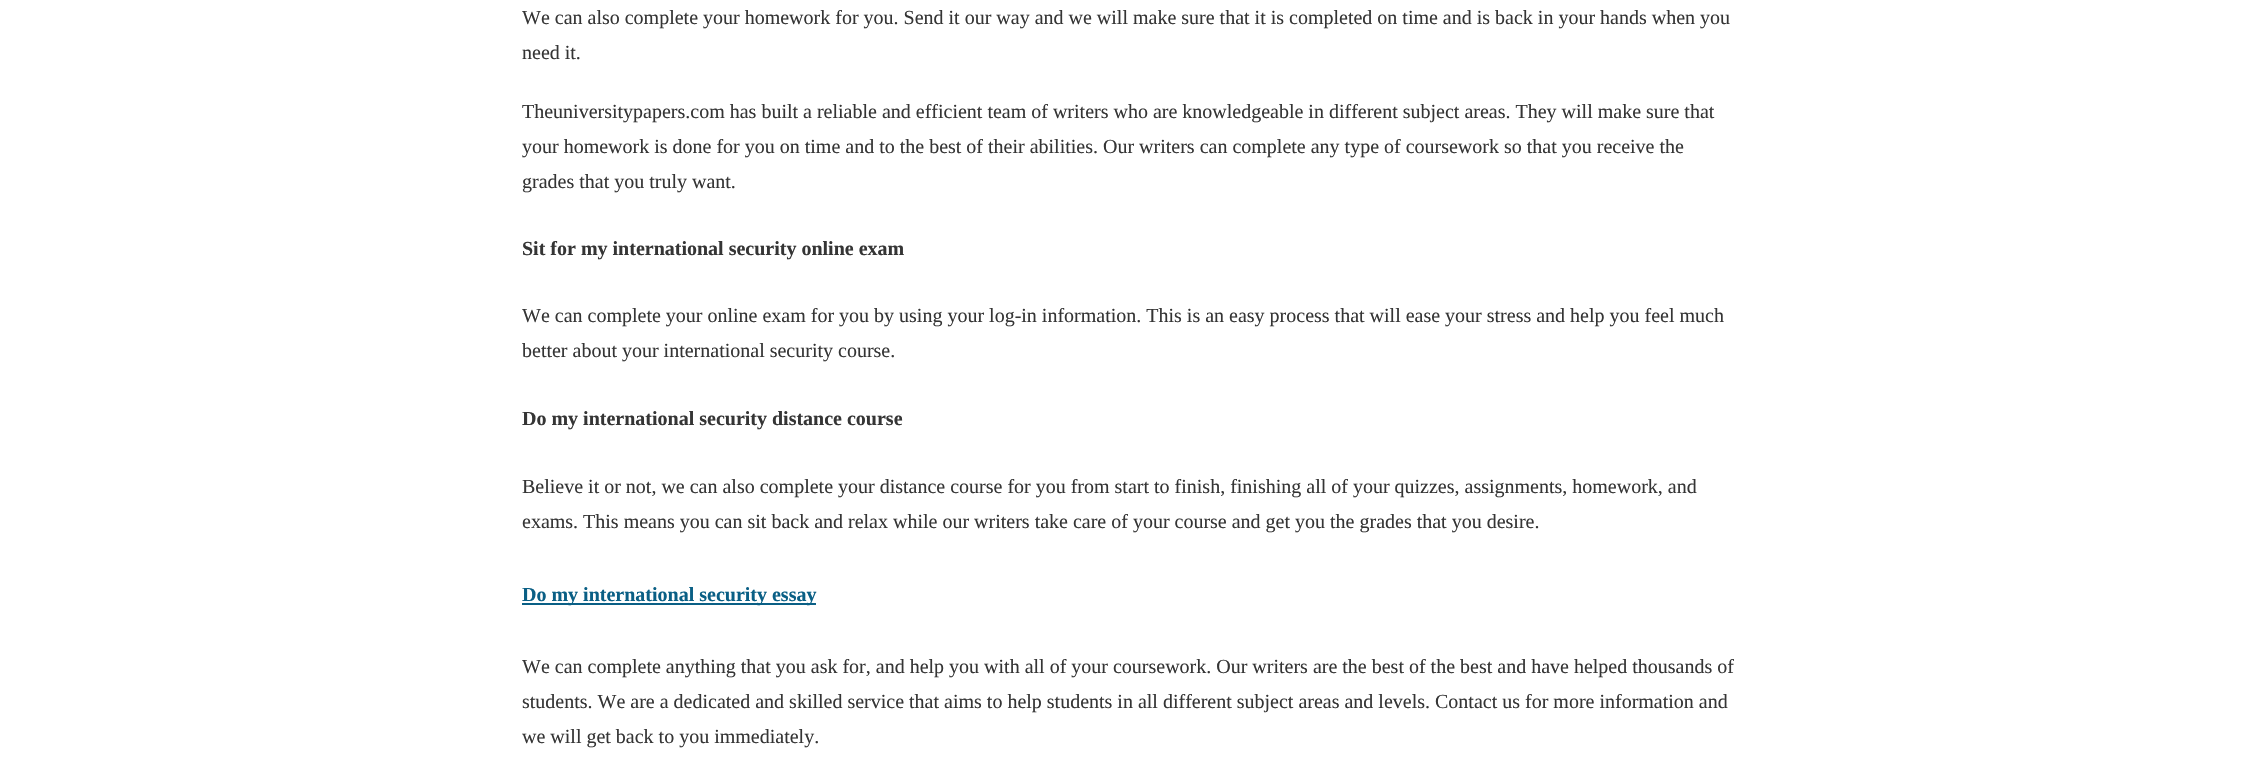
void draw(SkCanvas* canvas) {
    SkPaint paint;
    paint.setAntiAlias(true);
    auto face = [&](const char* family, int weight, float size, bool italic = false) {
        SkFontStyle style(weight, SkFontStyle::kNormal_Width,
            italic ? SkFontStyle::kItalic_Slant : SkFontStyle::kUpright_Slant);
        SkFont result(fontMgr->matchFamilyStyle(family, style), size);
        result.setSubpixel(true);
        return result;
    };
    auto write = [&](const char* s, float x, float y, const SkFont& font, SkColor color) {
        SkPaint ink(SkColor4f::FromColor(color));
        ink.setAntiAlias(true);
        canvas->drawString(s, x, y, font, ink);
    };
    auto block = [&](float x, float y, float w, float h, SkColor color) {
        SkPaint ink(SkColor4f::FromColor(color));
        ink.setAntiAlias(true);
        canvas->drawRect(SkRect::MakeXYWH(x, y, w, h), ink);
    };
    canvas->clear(SK_ColorWHITE);
    auto kFont1 = face("Liberation Serif", 400, 20);
    write("We can also complete your homework for you. Send it our way and we will make sure that it is completed on time and is back in your hands when you", 522, 24, kFont1, SkColorSetRGB(53, 53, 53));
    write("need it.", 522, 59, kFont1, SkColorSetRGB(53, 53, 53));
    write("Theuniversitypapers.com has built a reliable and efficient team of writers who are knowledgeable in different subject areas. They will make sure that", 522, 118, kFont1, SkColorSetRGB(53, 53, 53));
    write("your homework is done for you on time and to the best of their abilities. Our writers can complete any type of coursework so that you receive the", 522, 153, kFont1, SkColorSetRGB(53, 53, 53));
    write("grades that you truly want.", 522, 188, kFont1, SkColorSetRGB(53, 53, 53));
    auto kFont2 = face("Liberation Serif", 700, 20);
    write("Sit for my international security online exam", 522, 255, kFont2, SkColorSetRGB(53, 53, 53));
    write("We can complete your online exam for you by using your log-in information. This is an easy process that will ease your stress and help you feel much", 522, 322, kFont1, SkColorSetRGB(53, 53, 53));
    write("better about your international security course.", 522, 357, kFont1, SkColorSetRGB(53, 53, 53));
    write("Do my international security distance course", 522, 425, kFont2, SkColorSetRGB(53, 53, 53));
    write("Believe it or not, we can also complete your distance course for you from start to finish, finishing all of your quizzes, assignments, homework, and", 522, 493, kFont1, SkColorSetRGB(53, 53, 53));
    write("exams. This means you can sit back and relax while our writers take care of your course and get you the grades that you desire.", 522, 528, kFont1, SkColorSetRGB(53, 53, 53));
    block(522, 603, 294, 2, SkColorSetRGB(10, 95, 133));
    write("Do my international security essay", 522, 601, kFont2, SkColorSetRGB(10, 95, 133));
    write("We can complete anything that you ask for, and help you with all of your coursework. Our writers are the best of the best and have helped thousands of", 522, 673, kFont1, SkColorSetRGB(53, 53, 53));
    write("students. We are a dedicated and skilled service that aims to help students in all different subject areas and levels. Contact us for more information and", 522, 708, kFont1, SkColorSetRGB(53, 53, 53));
    write("we will get back to you immediately.", 522, 743, kFont1, SkColorSetRGB(53, 53, 53));
}
